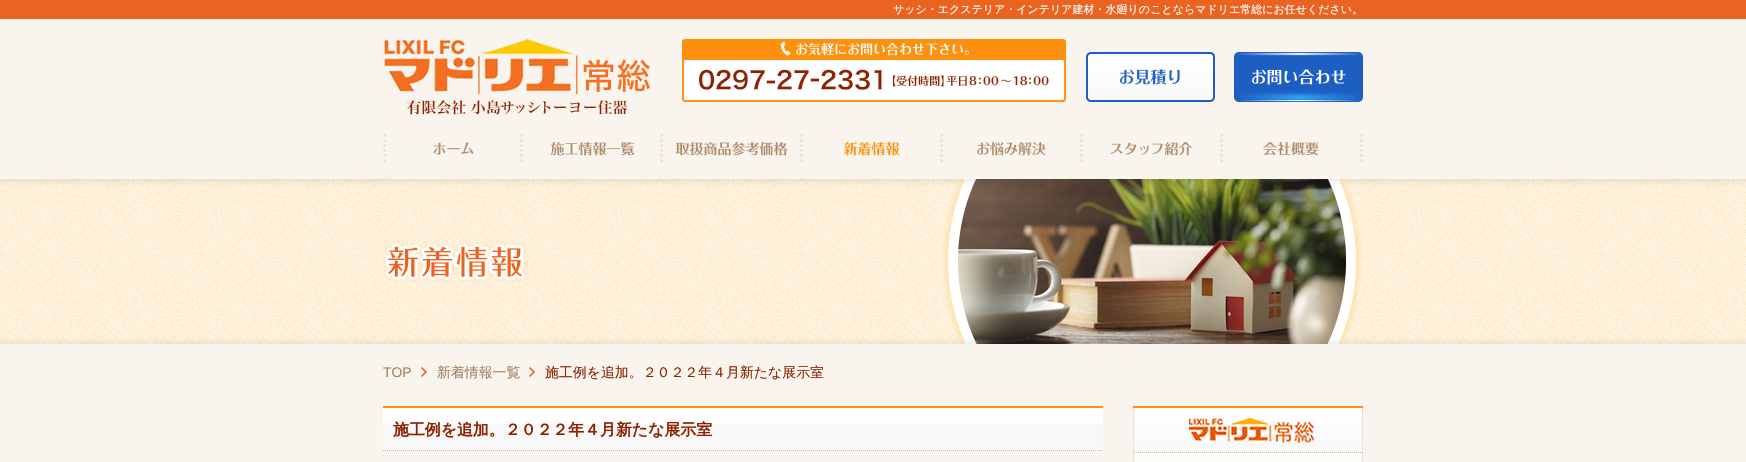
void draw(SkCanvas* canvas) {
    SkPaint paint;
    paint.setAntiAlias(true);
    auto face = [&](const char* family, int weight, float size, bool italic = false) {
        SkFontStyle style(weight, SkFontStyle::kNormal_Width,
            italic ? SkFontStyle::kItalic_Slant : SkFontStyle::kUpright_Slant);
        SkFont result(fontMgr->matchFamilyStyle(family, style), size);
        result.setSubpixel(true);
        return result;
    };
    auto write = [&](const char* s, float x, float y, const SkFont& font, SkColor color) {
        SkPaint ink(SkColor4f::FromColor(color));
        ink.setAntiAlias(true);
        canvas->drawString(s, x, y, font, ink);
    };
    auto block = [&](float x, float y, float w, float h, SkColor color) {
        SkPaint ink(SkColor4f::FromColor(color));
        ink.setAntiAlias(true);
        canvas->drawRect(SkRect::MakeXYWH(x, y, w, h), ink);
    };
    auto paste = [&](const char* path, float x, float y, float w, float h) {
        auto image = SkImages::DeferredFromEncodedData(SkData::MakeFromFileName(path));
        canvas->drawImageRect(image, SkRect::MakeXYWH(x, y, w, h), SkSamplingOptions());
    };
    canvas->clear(SkColorSetRGB(249, 245, 238));
    block(0, 0, 1746, 19, SkColorSetRGB(235, 99, 33));
    auto kFont1 = face("WenQuanYi Zen Hei", 500, 11);
    write("サッシ・エクステリア・インテリア建材・水廻りのことならマドリエ常総にお任せください。", 893, 13, kFont1, SK_ColorWHITE);
    paste("pic1.png", 384, 39, 266, 76);
    paste("pic2.png", 682, 39, 384, 63);
    paste("pic3.png", 1086, 52, 129, 50);
    paste("pic4.png", 1234, 52, 129, 50);
    paste("pic5.png", 383, 134, 140, 45);
    paste("pic6.png", 550, 134, 113, 45);
    paste("pic7.png", 675, 134, 128, 45);
    paste("pic8.png", 843, 134, 100, 28);
    paste("pic9.png", 977, 134, 106, 45);
    paste("pic10.png", 1110, 134, 113, 45);
    paste("pic11.png", 1263, 134, 100, 45);
    paste("pic12.png", 0, 179, 1746, 165);
    paste("pic13.png", 383, 179, 980, 165);
    paste("pic14.png", 421, 367, 6, 10);
    auto kFont2 = face("Liberation Sans", 400, 13.9f);
    write("TOP", 383, 377, kFont2, SkColorSetRGB(163, 131, 101));
    paste("pic14.png", 529, 367, 6, 10);
    auto kFont3 = face("WenQuanYi Zen Hei", 500, 13.9f);
    write("新着情報一覧", 437, 377, kFont3, SkColorSetRGB(163, 131, 101));
    write("施工例を追加。２０２２年４月新たな展示室", 545, 377, kFont3, SkColorSetRGB(140, 34, 0));
    block(383, 424, 720, 27, SkColorSetRGB(248, 248, 248));
    block(383, 408, 720, 16, SkColorSetRGB(254, 254, 254));
    block(383, 406, 720, 2, SkColorSetRGB(253, 145, 13));
    paint.setStyle(SkPaint::kStroke_Style);
    paint.setStrokeWidth(1);
    paint.setColor(SkColorSetRGB(187, 187, 187));
    paint.setPathEffect(SkDashPathEffect::Make({{1, 1}}, 0));
    canvas->drawPath(SkPathBuilder().moveTo(383, 450.5f).lineTo(1103, 450.5f).detach(), paint);
    paint.setPathEffect(nullptr);
    auto kFont4 = face("WenQuanYi Zen Hei", 700, 15.9f);
    write("施工例を追加。２０２２年４月新たな展示室", 393, 435, kFont4, SkColorSetRGB(140, 34, 0));
    paste("pic15.png", 1133, 406, 230, 47);
    block(1134, 453, 228, 9, SkColorSetRGB(253, 252, 249));
    block(1362, 453, 1, 9, SkColorSetRGB(232, 226, 219));
    block(1133, 453, 1, 9, SkColorSetRGB(232, 226, 219));
}
